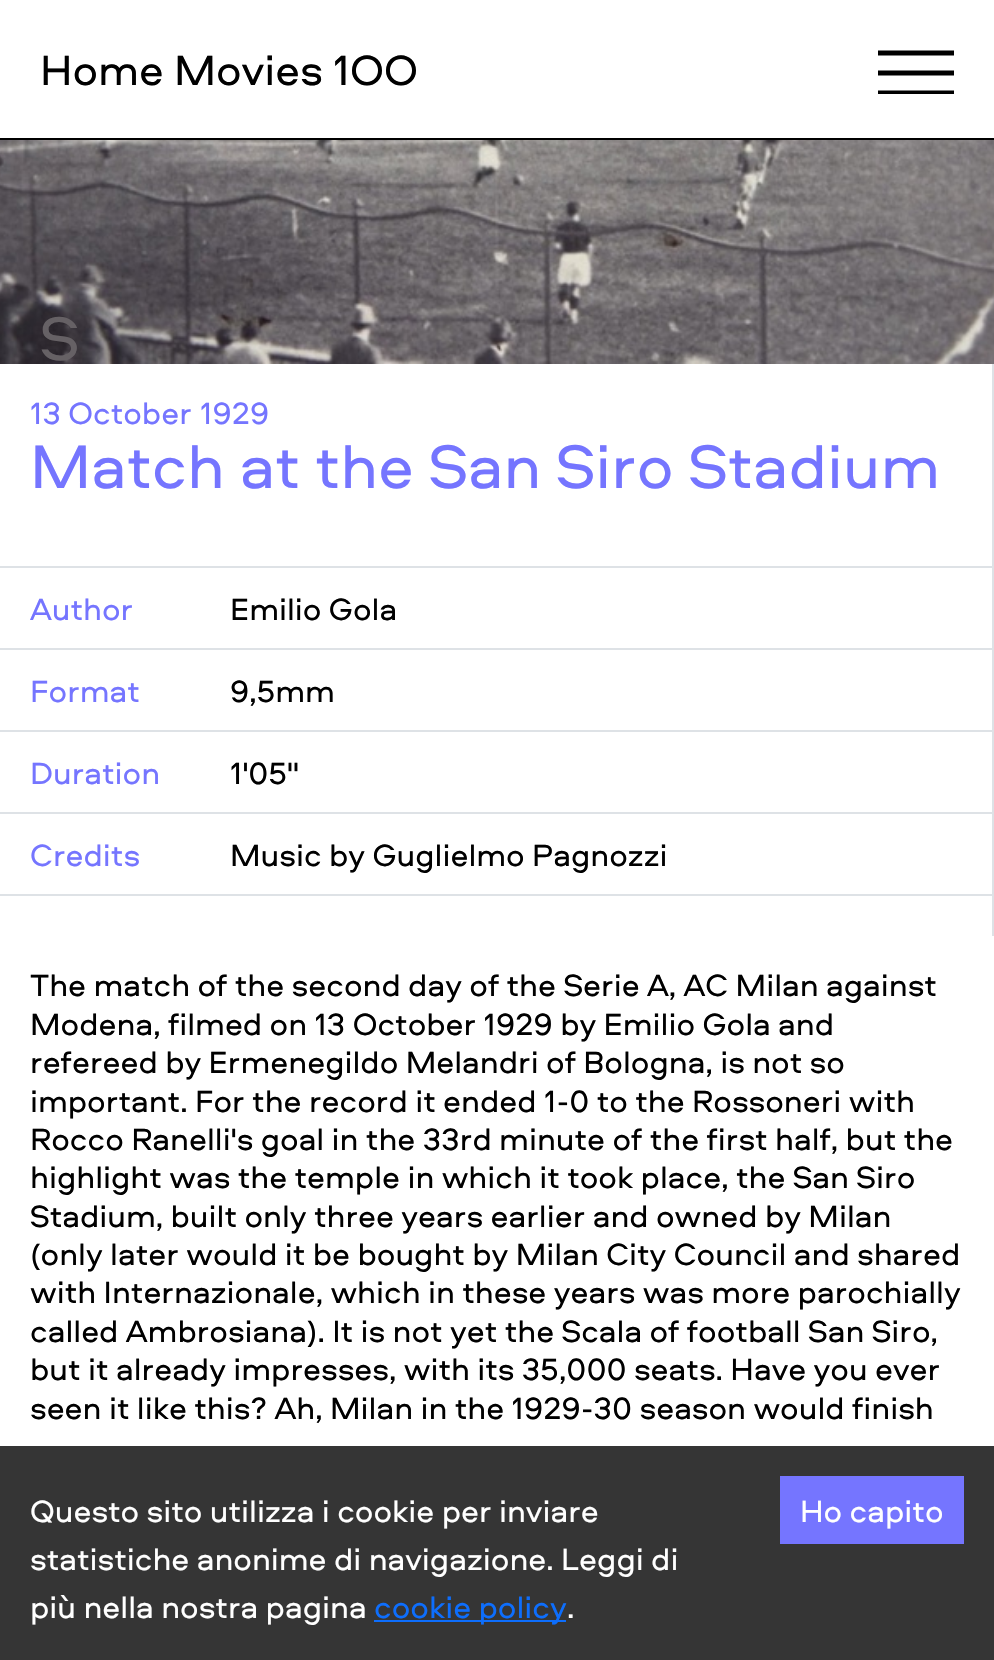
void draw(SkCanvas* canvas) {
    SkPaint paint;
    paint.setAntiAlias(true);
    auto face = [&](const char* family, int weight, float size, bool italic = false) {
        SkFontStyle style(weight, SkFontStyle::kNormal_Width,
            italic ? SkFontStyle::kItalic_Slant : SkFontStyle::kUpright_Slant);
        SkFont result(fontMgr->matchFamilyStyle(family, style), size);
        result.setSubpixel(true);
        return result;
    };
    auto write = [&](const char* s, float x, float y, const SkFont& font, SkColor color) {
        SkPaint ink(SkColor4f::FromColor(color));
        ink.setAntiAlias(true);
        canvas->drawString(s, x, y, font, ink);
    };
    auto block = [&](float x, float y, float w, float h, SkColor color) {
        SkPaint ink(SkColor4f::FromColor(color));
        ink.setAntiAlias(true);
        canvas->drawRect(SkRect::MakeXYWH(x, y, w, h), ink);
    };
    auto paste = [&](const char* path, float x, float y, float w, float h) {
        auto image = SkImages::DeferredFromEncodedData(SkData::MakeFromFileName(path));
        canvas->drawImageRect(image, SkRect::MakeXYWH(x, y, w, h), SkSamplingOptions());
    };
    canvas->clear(SK_ColorWHITE);
    block(0, 138, 994, 2, SK_ColorBLACK);
    auto kFont1 = face("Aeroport", 400, 44);
    write("Home Movies 1OO", 40, 85, kFont1, SK_ColorBLACK);
    paint.setStyle(SkPaint::kStroke_Style);
    paint.setStrokeWidth(5);
    paint.setColor(SK_ColorBLACK);
    canvas->drawPath(SkPathBuilder().moveTo(878, 53).lineTo(954, 53).detach(), paint);
    canvas->drawPath(SkPathBuilder().moveTo(878, 73).lineTo(954, 73).detach(), paint);
    canvas->save();
    canvas->clipRect(SkRect::MakeXYWH(878, 50, 76, 44));
    canvas->drawPath(SkPathBuilder().moveTo(878, 93).lineTo(954, 93).detach(), paint);
    canvas->restore();
    paste("pic1.png", 0, 140, 994, 224);
    auto kFont2 = face("Aeroport", 400, 64);
    write("S", 40, 360, kFont2, SkColorSetRGB(102, 97, 101));
    block(992, 364, 2, 572, SkColorSetRGB(222, 226, 230));
    auto kFont3 = face("Aeroport", 400, 32);
    write("13 October", 30, 424, kFont3, SkColorSetRGB(117, 117, 255));
    write("1929", 200, 424, kFont3, SkColorSetRGB(117, 117, 255));
    write("Match at the San Siro Stadium", 30, 488, kFont2, SkColorSetRGB(117, 117, 255));
    block(0, 566, 992, 2, SkColorSetRGB(222, 226, 230));
    write("Author", 30, 620, kFont3, SkColorSetRGB(117, 117, 255));
    write("Emilio Gola", 230, 620, kFont3, SK_ColorBLACK);
    block(0, 648, 992, 2, SkColorSetRGB(222, 226, 230));
    write("Format", 30, 702, kFont3, SkColorSetRGB(117, 117, 255));
    write("9,5mm", 230, 702, kFont3, SK_ColorBLACK);
    block(0, 730, 992, 2, SkColorSetRGB(222, 226, 230));
    write("Duration", 30, 784, kFont3, SkColorSetRGB(117, 117, 255));
    write("1'05''", 230, 784, kFont3, SK_ColorBLACK);
    block(0, 812, 992, 2, SkColorSetRGB(222, 226, 230));
    block(0, 894, 992, 2, SkColorSetRGB(222, 226, 230));
    write("Credits", 30, 866, kFont3, SkColorSetRGB(117, 117, 255));
    write("Music by Guglielmo Pagnozzi", 230, 866, kFont3, SK_ColorBLACK);
    write("The match of the second day of the Serie A, AC Milan against", 30, 996, kFont3, SK_ColorBLACK);
    write("Modena, filmed on 13 October 1929 by Emilio Gola and", 30, 1035, kFont3, SK_ColorBLACK);
    write("refereed by Ermenegildo Melandri of Bologna, is not so", 30, 1073, kFont3, SK_ColorBLACK);
    write("important. For the record it ended 1-0 to the Rossoneri with", 30, 1112, kFont3, SK_ColorBLACK);
    write("Rocco Ranelli's goal in the 33rd minute of the first half, but the", 30, 1150, kFont3, SK_ColorBLACK);
    write("highlight was the temple in which it took place, the San Siro", 30, 1188, kFont3, SK_ColorBLACK);
    write("Stadium, built only three years earlier and owned by Milan", 30, 1227, kFont3, SK_ColorBLACK);
    write("(only later would it be bought by Milan City Council and shared", 30, 1265, kFont3, SK_ColorBLACK);
    write("with Internazionale, which in these years was more parochially", 30, 1303, kFont3, SK_ColorBLACK);
    write("called Ambrosiana). It is not yet the Scala of football San Siro,", 30, 1342, kFont3, SK_ColorBLACK);
    write("but it already impresses, with its 35,000 seats. Have you ever", 30, 1380, kFont3, SK_ColorBLACK);
    write("seen it like this? Ah, Milan in the 1929-30 season would finish", 30, 1419, kFont3, SK_ColorBLACK);
    block(0, 1446, 994, 214, SkColorSetRGB(53, 53, 53));
    write("Questo sito utilizza i cookie per inviare", 30, 1522, kFont3, SK_ColorWHITE);
    write("statistiche anonime di navigazione. Leggi di", 30, 1570, kFont3, SK_ColorWHITE);
    write("più nella nostra pagina", 30, 1618, kFont3, SK_ColorWHITE);
    block(374, 1620, 192, 2, SkColorSetRGB(13, 110, 253));
    write("cookie policy", 374, 1618, kFont3, SkColorSetRGB(13, 110, 253));
    write(".", 567, 1618, kFont3, SK_ColorWHITE);
    block(780, 1476, 184, 68, SkColorSetRGB(117, 117, 255));
    write("Ho capito", 800, 1522, kFont3, SK_ColorWHITE);
}
